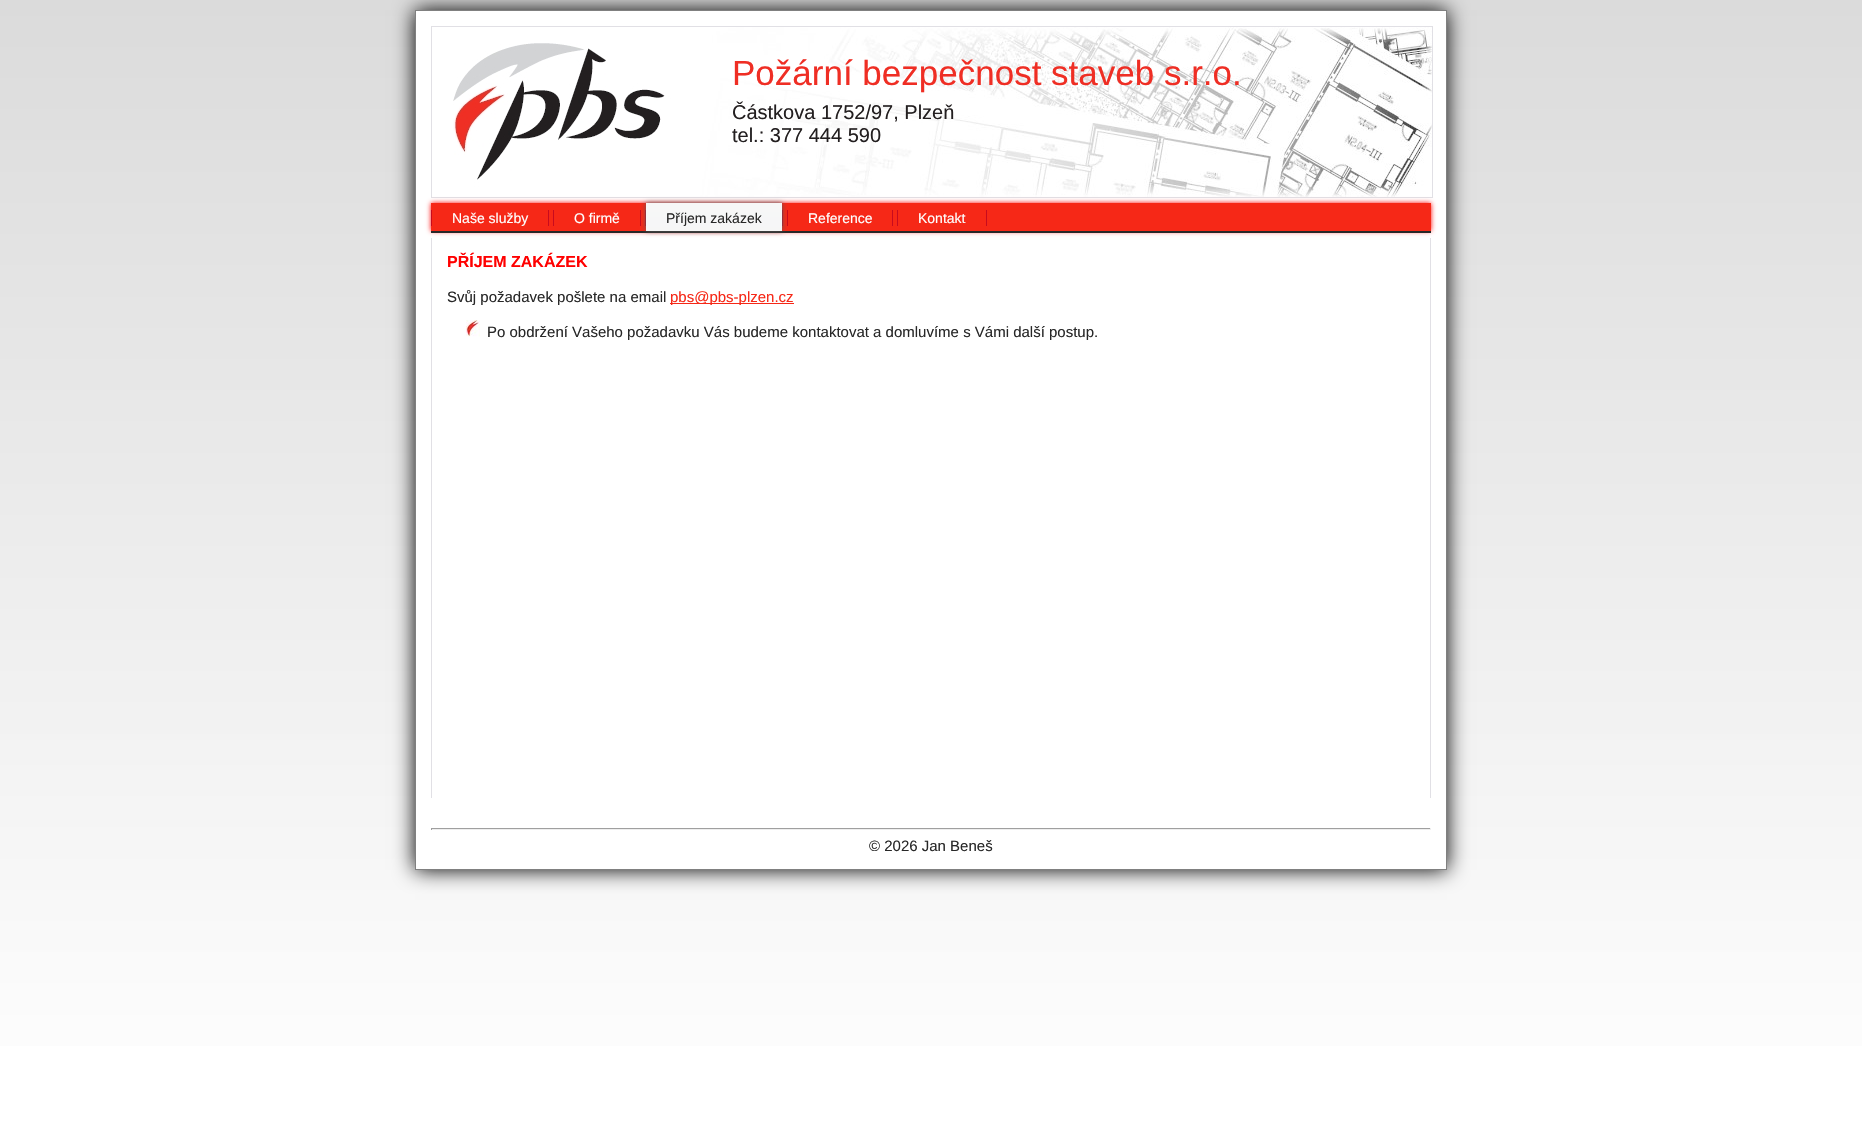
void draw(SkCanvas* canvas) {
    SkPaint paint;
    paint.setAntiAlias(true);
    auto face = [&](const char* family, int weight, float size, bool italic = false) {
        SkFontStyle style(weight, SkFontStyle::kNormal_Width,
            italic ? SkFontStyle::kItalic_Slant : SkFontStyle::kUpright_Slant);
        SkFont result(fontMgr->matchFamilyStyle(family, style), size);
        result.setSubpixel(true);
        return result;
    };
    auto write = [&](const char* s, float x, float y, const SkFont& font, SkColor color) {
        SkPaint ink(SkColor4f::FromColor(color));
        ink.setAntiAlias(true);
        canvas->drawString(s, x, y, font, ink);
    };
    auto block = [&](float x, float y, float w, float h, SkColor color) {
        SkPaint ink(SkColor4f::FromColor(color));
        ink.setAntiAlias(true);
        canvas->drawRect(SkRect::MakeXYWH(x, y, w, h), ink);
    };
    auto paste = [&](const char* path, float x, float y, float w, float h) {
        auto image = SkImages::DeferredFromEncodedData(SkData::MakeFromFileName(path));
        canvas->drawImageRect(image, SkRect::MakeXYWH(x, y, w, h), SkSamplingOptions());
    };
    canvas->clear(SK_ColorWHITE);
    {
        const SkColor colors[] = {SkColorSetRGB(219, 219, 219), SK_ColorWHITE};
        const float stops[] = {0, 1};
        const SkPoint ends[] = {{931, 0}, {931, 1124}};
        paint.setShader(SkGradientShader::MakeLinear(ends, colors, stops, 2, SkTileMode::kClamp));
        paint.setAlpha(255);
    }
    canvas->drawRect(SkRect::MakeXYWH(0, 0, 1862, 1046), paint);
    paint.setShader(nullptr);
    paint.setColor(SK_ColorBLACK);
    paint.setMaskFilter(SkMaskFilter::MakeBlur(kNormal_SkBlurStyle, 10));
    canvas->drawRect(SkRect::MakeXYWH(415, 10, 1032, 860), paint);
    paint.setMaskFilter(nullptr);
    paint.setColor(SK_ColorWHITE);
    canvas->drawRect(SkRect::MakeXYWH(415.5f, 10.5f, 1031, 859), paint);
    paint.setStyle(SkPaint::kStroke_Style);
    paint.setStrokeWidth(1);
    paint.setColor(SkColorSetRGB(128, 128, 128));
    canvas->drawRect(SkRect::MakeXYWH(415.5f, 10.5f, 1031, 859), paint);
    paste("pic1.png", 453, 27, 979, 170);
    paint.setColor(SkColorSetRGB(225, 224, 229));
    canvas->drawRect(SkRect::MakeXYWH(431.5f, 26.5f, 1001, 171), paint);
    auto kFont1 = face("Liberation Sans", 400, 35);
    write("Požární bezpečnost staveb s.r.o.", 732, 85, kFont1, SkColorSetRGB(239, 46, 36));
    auto kFont2 = face("Liberation Sans", 400, 20);
    write("Částkova 1752/97, Plzeň", 732, 119, kFont2, SkColorSetRGB(35, 31, 32));
    write("tel.: 377 444 590", 732, 142, kFont2, SkColorSetRGB(35, 31, 32));
    paint.setStyle(SkPaint::kFill_Style);
    paint.setColor(SkColorSetRGB(255, 0, 0));
    paint.setMaskFilter(SkMaskFilter::MakeBlur(kNormal_SkBlurStyle, 2.5f));
    canvas->drawRect(SkRect::MakeXYWH(431, 203, 1000, 28), paint);
    paint.setMaskFilter(nullptr);
    block(431, 203, 1000, 28, SkColorSetRGB(246, 40, 23));
    auto kFont3 = face("Liberation Sans", 400, 14);
    write("Naše služby", 452, 223, kFont3, SK_ColorWHITE);
    block(548, 210, 1, 16, SkColorSetRGB(200, 11, 30));
    block(431, 210, 1, 16, SkColorSetRGB(200, 11, 30));
    write("O firmě", 574, 223, kFont3, SK_ColorWHITE);
    block(640, 210, 1, 16, SkColorSetRGB(200, 11, 30));
    block(553, 210, 1, 16, SkColorSetRGB(200, 11, 30));
    block(782, 210, 1, 16, SkColorSetRGB(200, 11, 30));
    block(645, 210, 1, 16, SkColorSetRGB(200, 11, 30));
    block(431, 231, 1000, 2, SkColorSetRGB(40, 40, 40));
    paint.setColor(SkColorSetRGB(89, 89, 89));
    paint.setMaskFilter(SkMaskFilter::MakeBlur(kNormal_SkBlurStyle, 2.5f));
    canvas->drawRect(SkRect::MakeXYWH(646, 203, 136, 28), paint);
    paint.setMaskFilter(nullptr);
    {
        const SkColor colors[] = {SK_ColorWHITE, SkColorSetRGB(210, 211, 213)};
        const float stops[] = {0, 1};
        const SkPoint ends[] = {{931, 0}, {931, 1124}};
        paint.setShader(SkGradientShader::MakeLinear(ends, colors, stops, 2, SkTileMode::kClamp));
        paint.setAlpha(255);
    }
    canvas->drawRect(SkRect::MakeXYWH(646, 203, 136, 28), paint);
    write("Příjem zakázek", 666, 223, kFont3, SkColorSetRGB(40, 40, 40));
    write("Reference", 808, 223, kFont3, SK_ColorWHITE);
    block(892, 210, 1, 16, SkColorSetRGB(200, 11, 30));
    block(787, 210, 1, 16, SkColorSetRGB(200, 11, 30));
    write("Kontakt", 918, 223, kFont3, SK_ColorWHITE);
    block(986, 210, 1, 16, SkColorSetRGB(200, 11, 30));
    block(897, 210, 1, 16, SkColorSetRGB(200, 11, 30));
    block(1430, 238, 1, 560, SkColorSetRGB(225, 224, 229));
    block(431, 238, 1, 560, SkColorSetRGB(225, 224, 229));
    auto kFont4 = face("Liberation Sans", 700, 16);
    write("PŘÍJEM ZAKÁZEK", 447, 267, kFont4, SkColorSetRGB(255, 0, 0));
    auto kFont5 = face("Liberation Sans", 400, 15);
    write("Svůj požadavek pošlete na email", 447, 302, kFont5, SkColorSetRGB(40, 40, 40));
    block(670, 303, 124, 1, SkColorSetRGB(246, 40, 23));
    write("pbs@pbs-plzen.cz", 670, 302, kFont5, SkColorSetRGB(246, 40, 23));
    paste("pic2.png", 466, 320, 14, 17);
    write("Po obdržení Vašeho požadavku Vás budeme kontaktovat a domluvíme s Vámi další postup.", 487, 337, kFont5, SkColorSetRGB(40, 40, 40));
    block(431, 828, 1000, 1, SkColorSetRGB(159, 159, 159));
    block(1430, 828, 1, 2, SkColorSetRGB(238, 238, 238));
    block(431, 829, 1000, 1, SkColorSetRGB(238, 238, 238));
    block(431, 828, 1, 2, SkColorSetRGB(159, 159, 159));
    write("© 2026 Jan Beneš", 869, 851, kFont5, SkColorSetRGB(40, 40, 40));
}
